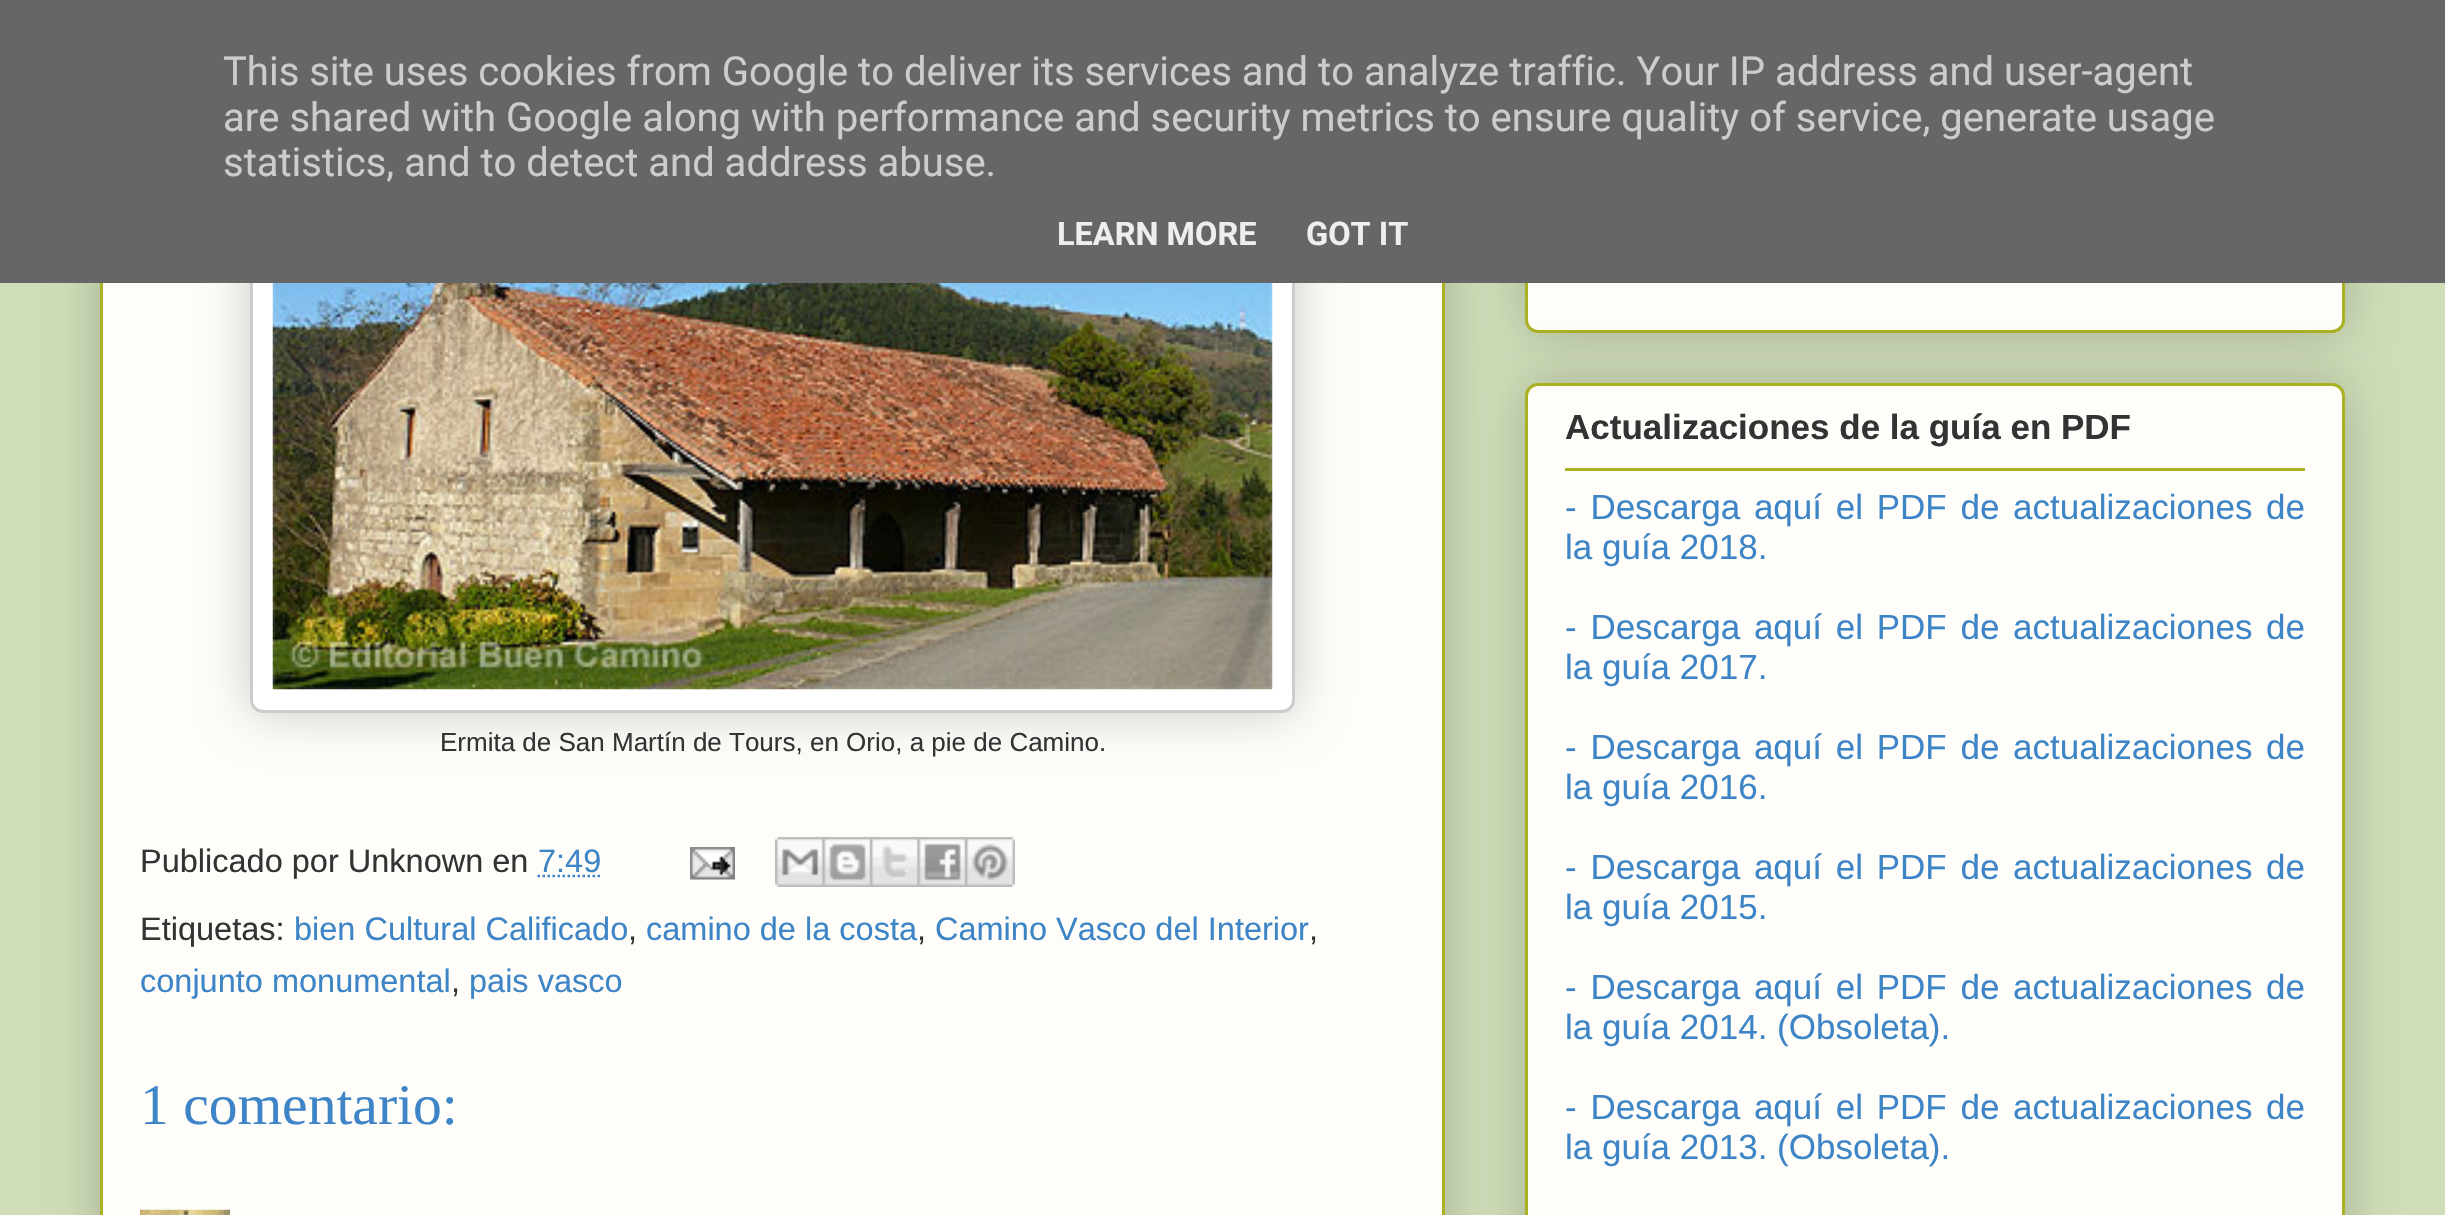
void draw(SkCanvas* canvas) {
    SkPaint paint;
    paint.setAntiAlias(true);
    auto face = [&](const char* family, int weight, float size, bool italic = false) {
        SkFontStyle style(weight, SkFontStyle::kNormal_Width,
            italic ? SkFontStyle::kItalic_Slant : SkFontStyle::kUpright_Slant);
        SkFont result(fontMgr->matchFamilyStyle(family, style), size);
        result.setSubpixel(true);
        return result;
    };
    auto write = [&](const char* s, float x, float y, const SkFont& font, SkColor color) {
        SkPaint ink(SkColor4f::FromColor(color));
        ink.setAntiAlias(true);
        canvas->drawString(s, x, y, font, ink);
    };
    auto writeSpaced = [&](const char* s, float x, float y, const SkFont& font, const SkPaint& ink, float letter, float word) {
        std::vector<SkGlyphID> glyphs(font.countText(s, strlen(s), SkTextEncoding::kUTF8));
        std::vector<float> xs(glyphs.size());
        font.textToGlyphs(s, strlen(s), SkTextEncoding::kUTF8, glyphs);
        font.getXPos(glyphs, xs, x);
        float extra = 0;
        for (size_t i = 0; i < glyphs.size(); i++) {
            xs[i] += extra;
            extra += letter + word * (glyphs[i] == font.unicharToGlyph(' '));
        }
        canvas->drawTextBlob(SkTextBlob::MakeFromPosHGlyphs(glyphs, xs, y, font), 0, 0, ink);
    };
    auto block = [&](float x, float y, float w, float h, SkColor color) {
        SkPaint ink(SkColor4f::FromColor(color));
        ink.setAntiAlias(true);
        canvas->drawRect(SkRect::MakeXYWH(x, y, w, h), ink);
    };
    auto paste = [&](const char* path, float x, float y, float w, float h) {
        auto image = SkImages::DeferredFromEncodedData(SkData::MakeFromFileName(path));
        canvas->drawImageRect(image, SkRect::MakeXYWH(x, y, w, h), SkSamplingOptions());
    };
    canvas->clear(SkColorSetRGB(207, 221, 184));
    paint.setColor(SkColorSetARGB(51, 0, 0, 0));
    paint.setMaskFilter(SkMaskFilter::MakeBlur(kNormal_SkBlurStyle, 25));
    canvas->drawRoundRect(SkRect::MakeXYWH(100, -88, 1345, 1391), 13, 13, paint);
    paint.setMaskFilter(nullptr);
    block(103, 283, 1339, 932, SkColorSetRGB(254, 253, 250));
    paint.setStyle(SkPaint::kStroke_Style);
    paint.setStrokeWidth(3);
    paint.setColor(SkColorSetRGB(170, 177, 35));
    canvas->drawRect(SkRect::MakeXYWH(101.5f, -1.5f, 1342, 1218), paint);
    paint.setStyle(SkPaint::kFill_Style);
    paint.setColor(SkColorSetARGB(51, 0, 0, 0));
    paint.setMaskFilter(SkMaskFilter::MakeBlur(kNormal_SkBlurStyle, 25));
    canvas->drawRoundRect(SkRect::MakeXYWH(250, 130, 1045, 583), 13, 13, paint);
    paint.setMaskFilter(nullptr);
    paint.setColor(SK_ColorWHITE);
    canvas->drawRoundRect(SkRect::MakeXYWH(251.5f, 131.5f, 1042, 580), 11.5f, 11.5f, paint);
    paint.setStyle(SkPaint::kStroke_Style);
    paint.setColor(SkColorSetRGB(204, 204, 204));
    canvas->drawRoundRect(SkRect::MakeXYWH(251.5f, 131.5f, 1042, 580), 11.5f, 11.5f, paint);
    paint.setStyle(SkPaint::kFill_Style);
    paint.setColor(SkColorSetARGB(51, 0, 0, 0));
    paint.setMaskFilter(SkMaskFilter::MakeBlur(kNormal_SkBlurStyle, 25));
    canvas->drawRoundRect(SkRect::MakeXYWH(1525, 110, 820, 223), 13, 13, paint);
    paint.setMaskFilter(nullptr);
    paint.setColor(SkColorSetRGB(254, 253, 250));
    canvas->drawRoundRect(SkRect::MakeXYWH(1526.5f, 111.5f, 817, 220), 11.5f, 11.5f, paint);
    paint.setStyle(SkPaint::kStroke_Style);
    paint.setColor(SkColorSetRGB(170, 177, 35));
    canvas->drawRoundRect(SkRect::MakeXYWH(1526.5f, 111.5f, 817, 220), 11.5f, 11.5f, paint);
    block(0, 0, 2445, 283, SkColorSetRGB(102, 102, 102));
    auto kFont1 = face("Roboto", 400, 40);
    write("This site uses cookies from Google to deliver its services and to analyze traffic. Your IP address and user-agent", 223, 85, kFont1, SkColorSetRGB(204, 204, 204));
    write("are shared with Google along with performance and security metrics to ensure quality of service, generate usage", 223, 131, kFont1, SkColorSetRGB(204, 204, 204));
    write("statistics, and to detect and address abuse.", 223, 176, kFont1, SkColorSetRGB(204, 204, 204));
    auto kFont2 = face("Roboto", 700, 32.5f);
    write("LEARN MORE", 1057, 245, kFont2, SkColorSetRGB(238, 238, 238));
    write("GOT IT", 1306, 245, kFont2, SkColorSetRGB(238, 238, 238));
    paste("pic1.png", 272, 283, 1001, 407);
    auto kFont3 = face("Liberation Sans", 400, 26);
    write("Ermita de San Martín de Tours, en Orio, a pie de Camino.", 440, 751, kFont3, SkColorSetRGB(51, 51, 51));
    auto kFont4 = face("Liberation Sans", 400, 32.5f);
    write("Publicado por Unknown en", 140, 872, kFont4, SkColorSetRGB(51, 51, 51));
    write("7:49", 538, 872, kFont4, SkColorSetRGB(61, 133, 198));
    paint.setStrokeWidth(2.5f);
    paint.setColor(SkColorSetRGB(61, 133, 198));
    paint.setPathEffect(SkDashPathEffect::Make({{2.5f, 2.5f}}, 0));
    canvas->drawPath(SkPathBuilder().moveTo(537.5f, 876).lineTo(601, 876).detach(), paint);
    paint.setPathEffect(nullptr);
    paste("pic2.png", 690, 847, 45, 33);
    paste("pic3.png", 775, 837, 48, 50);
    paste("pic4.png", 822, 837, 48, 50);
    paste("pic5.png", 870, 837, 48, 50);
    paste("pic6.png", 917, 837, 48, 50);
    paste("pic7.png", 965, 837, 50, 50);
    write("Etiquetas:", 140, 940, kFont4, SkColorSetRGB(51, 51, 51));
    write("bien Cultural Calificado", 294, 940, kFont4, SkColorSetRGB(61, 133, 198));
    write(",", 628, 940, kFont4, SkColorSetRGB(51, 51, 51));
    write("camino de la costa", 646, 940, kFont4, SkColorSetRGB(61, 133, 198));
    write(",", 917, 940, kFont4, SkColorSetRGB(51, 51, 51));
    write("Camino Vasco del Interior", 935, 940, kFont4, SkColorSetRGB(61, 133, 198));
    write(",", 1309, 940, kFont4, SkColorSetRGB(51, 51, 51));
    write("conjunto monumental", 140, 992, kFont4, SkColorSetRGB(61, 133, 198));
    write(",", 451, 992, kFont4, SkColorSetRGB(51, 51, 51));
    write("pais vasco", 469, 992, kFont4, SkColorSetRGB(61, 133, 198));
    auto kFont5 = face("Liberation Serif", 400, 57.5f);
    write("1 comentario:", 140, 1124, kFont5, SkColorSetRGB(61, 133, 198));
    paste("pic8.png", 140, 1209, 90, 6);
    paint.setStyle(SkPaint::kFill_Style);
    paint.setColor(SkColorSetARGB(51, 0, 0, 0));
    paint.setMaskFilter(SkMaskFilter::MakeBlur(kNormal_SkBlurStyle, 25));
    canvas->drawRoundRect(SkRect::MakeXYWH(1525, 383, 820, 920), 13, 13, paint);
    paint.setMaskFilter(nullptr);
    paint.setColor(SkColorSetRGB(254, 253, 250));
    canvas->drawRoundRect(SkRect::MakeXYWH(1526.5f, 384.5f, 817, 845), 11.5f, 11.5f, paint);
    paint.setStyle(SkPaint::kStroke_Style);
    paint.setStrokeWidth(3);
    paint.setColor(SkColorSetRGB(170, 177, 35));
    canvas->drawRoundRect(SkRect::MakeXYWH(1526.5f, 384.5f, 817, 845), 11.5f, 11.5f, paint);
    auto kFont6 = face("Liberation Sans", 700, 35);
    write("Actualizaciones de la guía en PDF", 1565, 439, kFont6, SkColorSetRGB(51, 51, 51));
    block(1565, 468, 740, 3, SkColorSetRGB(170, 177, 35));
    auto kFont7 = face("Liberation Sans", 400, 35);
    paint.setStyle(SkPaint::kFill_Style);
    paint.setColor(SkColorSetRGB(61, 133, 198));
    writeSpaced("- Descarga aquí el PDF de actualizaciones de", 1565, 519, kFont7, paint, 0, 4);
    write("la guía 2018.", 1565, 559, kFont7, SkColorSetRGB(61, 133, 198));
    writeSpaced("- Descarga aquí el PDF de actualizaciones de", 1565, 639, kFont7, paint, 0, 4);
    write("la guía 2017.", 1565, 679, kFont7, SkColorSetRGB(61, 133, 198));
    writeSpaced("- Descarga aquí el PDF de actualizaciones de", 1565, 759, kFont7, paint, 0, 4);
    write("la guía 2016.", 1565, 799, kFont7, SkColorSetRGB(61, 133, 198));
    writeSpaced("- Descarga aquí el PDF de actualizaciones de", 1565, 879, kFont7, paint, 0, 4);
    write("la guía 2015.", 1565, 919, kFont7, SkColorSetRGB(61, 133, 198));
    writeSpaced("- Descarga aquí el PDF de actualizaciones de", 1565, 999, kFont7, paint, 0, 4);
    write("la guía 2014. (Obsoleta).", 1565, 1039, kFont7, SkColorSetRGB(61, 133, 198));
    writeSpaced("- Descarga aquí el PDF de actualizaciones de", 1565, 1119, kFont7, paint, 0, 4);
    write("la guía 2013. (Obsoleta).", 1565, 1159, kFont7, SkColorSetRGB(61, 133, 198));
}
